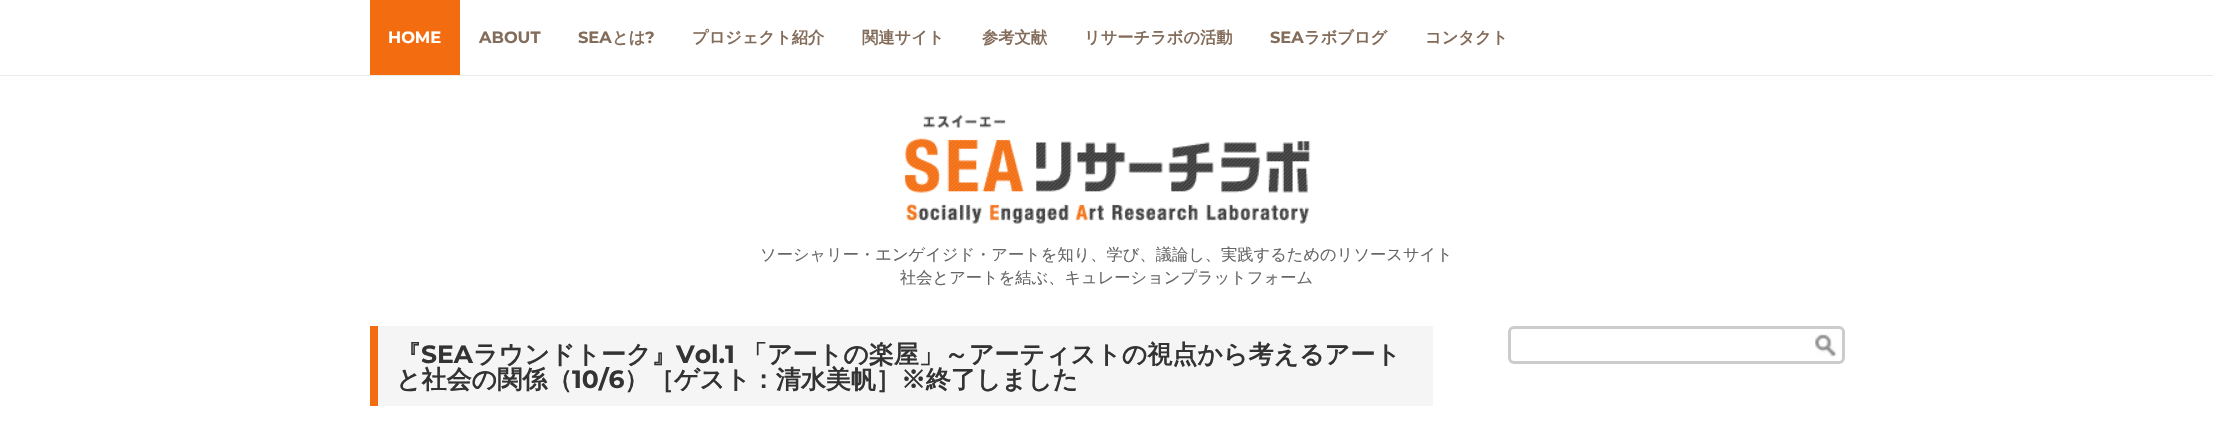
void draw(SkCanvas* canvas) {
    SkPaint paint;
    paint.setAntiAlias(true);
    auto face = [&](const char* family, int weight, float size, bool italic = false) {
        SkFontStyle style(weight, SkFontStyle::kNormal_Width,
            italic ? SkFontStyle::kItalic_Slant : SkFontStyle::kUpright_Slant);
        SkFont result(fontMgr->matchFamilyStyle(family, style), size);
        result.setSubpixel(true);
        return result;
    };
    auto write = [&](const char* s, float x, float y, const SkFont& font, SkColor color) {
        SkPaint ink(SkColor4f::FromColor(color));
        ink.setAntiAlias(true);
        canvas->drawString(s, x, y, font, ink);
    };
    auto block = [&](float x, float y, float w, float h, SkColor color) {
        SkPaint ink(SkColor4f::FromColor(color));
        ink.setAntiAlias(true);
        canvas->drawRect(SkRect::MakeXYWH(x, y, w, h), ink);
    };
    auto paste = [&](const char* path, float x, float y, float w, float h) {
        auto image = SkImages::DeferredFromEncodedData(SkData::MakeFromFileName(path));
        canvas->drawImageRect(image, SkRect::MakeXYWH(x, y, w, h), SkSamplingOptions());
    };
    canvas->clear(SK_ColorWHITE);
    block(0, 75, 2213, 1, SkColorSetRGB(238, 234, 229));
    block(370, 0, 90, 75, SkColorSetRGB(243, 109, 16));
    auto kFont1 = face("Montserrat", 700, 16.25f);
    write("HOME", 388, 43, kFont1, SK_ColorWHITE);
    write("ABOUT", 479, 43, kFont1, SkColorSetRGB(132, 108, 90));
    write("SEA", 578, 43, kFont1, SkColorSetRGB(132, 108, 90));
    auto kFont2 = face("WenQuanYi Zen Hei", 700, 16.25f);
    write("とは", 612, 43, kFont2, SkColorSetRGB(132, 108, 90));
    write("?", 645, 43, kFont1, SkColorSetRGB(132, 108, 90));
    write("プロジェクト紹介", 692, 43, kFont2, SkColorSetRGB(132, 108, 90));
    write("関連サイト", 862, 43, kFont2, SkColorSetRGB(132, 108, 90));
    write("参考文献", 982, 43, kFont2, SkColorSetRGB(132, 108, 90));
    write("リサーチラボの活動", 1084, 43, kFont2, SkColorSetRGB(132, 108, 90));
    write("SEA", 1270, 43, kFont1, SkColorSetRGB(132, 108, 90));
    write("ラボブログ", 1304, 43, kFont2, SkColorSetRGB(132, 108, 90));
    write("コンタクト", 1425, 43, kFont2, SkColorSetRGB(132, 108, 90));
    paste("pic1.png", 904, 114, 407, 110);
    auto kFont3 = face("WenQuanYi Zen Hei", 500, 16.25f);
    write("ソーシャリー・エンゲイジド・アートを知り、学び、議論し、実践するためのリソースサイト", 760, 260, kFont3, SkColorSetRGB(102, 102, 102));
    write("社会とアートを結ぶ、キュレーションプラットフォーム", 900, 283, kFont3, SkColorSetRGB(102, 102, 102));
    block(378, 326, 1055, 80, SkColorSetRGB(245, 245, 245));
    block(370, 326, 8, 80, SkColorSetRGB(243, 109, 16));
    auto kFont4 = face("WenQuanYi Zen Hei", 700, 25);
    write("『", 396, 363, kFont4, SkColorSetRGB(51, 51, 51));
    auto kFont5 = face("Montserrat", 700, 25);
    write("SEA", 421, 363, kFont5, SkColorSetRGB(51, 51, 51));
    write("ラウンドトーク』", 473, 363, kFont4, SkColorSetRGB(51, 51, 51));
    write("Vol.1", 676, 363, kFont5, SkColorSetRGB(51, 51, 51));
    write("「アートの楽屋」～アーティストの視点から考えるアート", 742, 363, kFont4, SkColorSetRGB(51, 51, 51));
    write("と社会の関係（", 396, 388, kFont4, SkColorSetRGB(51, 51, 51));
    write("10/6", 572, 388, kFont5, SkColorSetRGB(51, 51, 51));
    write("）［ゲスト：清水美帆］※終了しました", 624, 388, kFont4, SkColorSetRGB(51, 51, 51));
    paint.setStyle(SkPaint::kStroke_Style);
    paint.setStrokeWidth(3);
    paint.setColor(SkColorSetRGB(204, 204, 204));
    canvas->drawRoundRect(SkRect::MakeXYWH(1509.5f, 327.5f, 334, 35), 4.5f, 4.5f, paint);
    paste("pic2.png", 1815, 334, 22, 23);
}
